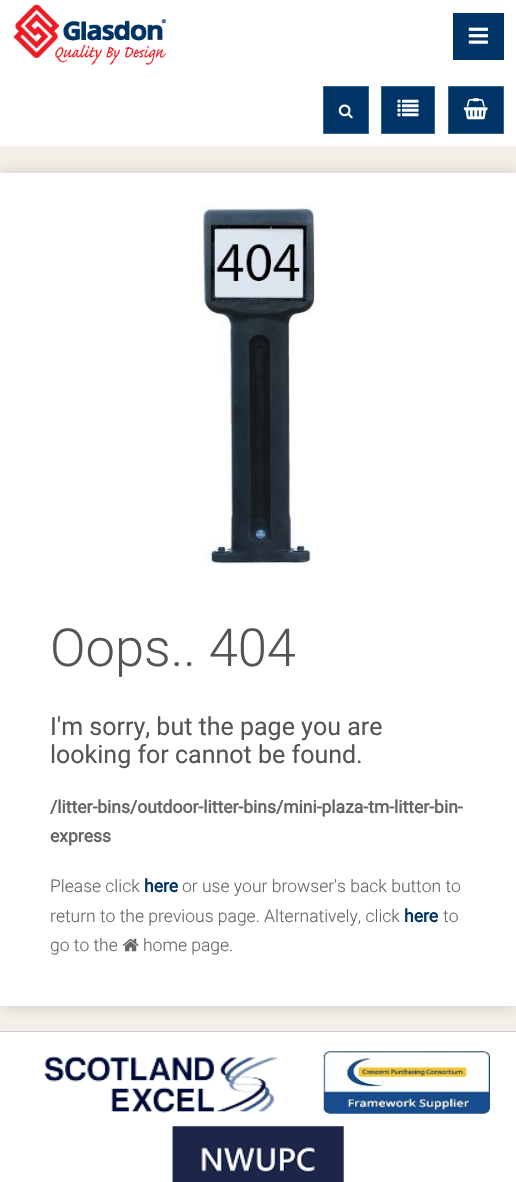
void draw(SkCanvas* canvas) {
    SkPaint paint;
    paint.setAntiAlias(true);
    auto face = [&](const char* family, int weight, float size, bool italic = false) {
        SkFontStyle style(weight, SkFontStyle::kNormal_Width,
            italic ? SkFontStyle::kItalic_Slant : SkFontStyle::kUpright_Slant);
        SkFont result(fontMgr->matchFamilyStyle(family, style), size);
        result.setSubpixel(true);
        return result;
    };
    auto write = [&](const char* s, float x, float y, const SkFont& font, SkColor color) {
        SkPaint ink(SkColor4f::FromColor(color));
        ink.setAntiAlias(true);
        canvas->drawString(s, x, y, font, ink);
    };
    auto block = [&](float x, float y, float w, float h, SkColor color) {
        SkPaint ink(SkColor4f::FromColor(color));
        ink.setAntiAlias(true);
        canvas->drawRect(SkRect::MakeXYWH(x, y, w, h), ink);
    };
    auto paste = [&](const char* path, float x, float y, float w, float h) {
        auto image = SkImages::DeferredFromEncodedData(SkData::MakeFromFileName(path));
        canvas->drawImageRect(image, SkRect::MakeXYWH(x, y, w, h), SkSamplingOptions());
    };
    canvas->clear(SkColorSetRGB(244, 241, 234));
    block(0, 0, 516, 146, SK_ColorWHITE);
    block(324, 87, 44, 46, SkColorSetRGB(0, 51, 102));
    block(323, 86, 46, 1, SkColorSetRGB(55, 102, 133));
    block(368, 86, 1, 48, SkColorSetRGB(55, 102, 133));
    block(323, 133, 46, 1, SkColorSetRGB(53, 98, 128));
    block(323, 86, 1, 48, SkColorSetRGB(55, 102, 133));
    paste("pic1.png", 338, 104, 15, 15);
    block(382, 87, 52, 46, SkColorSetRGB(0, 51, 102));
    block(381, 86, 54, 1, SkColorSetRGB(55, 102, 133));
    block(434, 86, 1, 48, SkColorSetRGB(55, 102, 133));
    block(381, 133, 54, 1, SkColorSetRGB(53, 98, 128));
    block(381, 86, 1, 48, SkColorSetRGB(55, 102, 133));
    paste("pic2.png", 397, 99, 22, 18);
    block(449, 87, 54, 46, SkColorSetRGB(0, 51, 102));
    block(448, 86, 56, 1, SkColorSetRGB(55, 102, 133));
    block(503, 86, 1, 48, SkColorSetRGB(55, 102, 133));
    block(448, 133, 56, 1, SkColorSetRGB(53, 98, 128));
    block(448, 86, 1, 48, SkColorSetRGB(55, 102, 133));
    paste("pic3.png", 463, 98, 25, 22);
    paste("pic4.png", 13, 4, 154, 61);
    block(453, 13, 51, 47, SkColorSetRGB(0, 51, 102));
    paste("pic5.png", 468, 27, 21, 17);
    paint.setColor(SkColorSetARGB(43, 0, 0, 0));
    paint.setMaskFilter(SkMaskFilter::MakeBlur(kNormal_SkBlurStyle, 8));
    canvas->drawRect(SkRect::MakeXYWH(0, 173, 516, 833), paint);
    paint.setMaskFilter(nullptr);
    block(0, 173, 516, 833, SK_ColorWHITE);
    paste("pic6.png", 199, 205, 120, 360);
    auto kFont1 = face("Roboto", 300, 52.5f);
    write("Oops.. 404", 50, 666, kFont1, SkColorSetRGB(85, 85, 85));
    auto kFont2 = face("Roboto", 400, 25);
    write("I'm sorry, but the page you are", 50, 735, kFont2, SkColorSetRGB(85, 85, 85));
    write("looking for cannot be found.", 50, 763, kFont2, SkColorSetRGB(85, 85, 85));
    auto kFont3 = face("Roboto", 700, 17.5f);
    write("/litter-bins/outdoor-litter-bins/mini-plaza-tm-litter-bin-", 50, 813, kFont3, SkColorSetRGB(101, 101, 101));
    write("express", 50, 842, kFont3, SkColorSetRGB(101, 101, 101));
    auto kFont4 = face("Roboto", 300, 17.5f);
    write("Please click", 50, 892, kFont4, SkColorSetRGB(101, 101, 101));
    write("here", 144, 892, kFont3, SkColorSetRGB(0, 51, 102));
    write("or use your browser's back button to", 182, 892, kFont4, SkColorSetRGB(101, 101, 101));
    write("return to the previous page. Alternatively, click", 50, 922, kFont4, SkColorSetRGB(101, 101, 101));
    write("here", 404, 922, kFont3, SkColorSetRGB(0, 51, 102));
    write("to", 443, 922, kFont4, SkColorSetRGB(101, 101, 101));
    write("go to the", 50, 951, kFont4, SkColorSetRGB(101, 101, 101));
    paste("pic7.png", 122, 938, 17, 14);
    write("home page.", 143, 951, kFont4, SkColorSetRGB(101, 101, 101));
    block(0, 1032, 516, 150, SK_ColorWHITE);
    block(0, 1031, 516, 1, SkColorSetRGB(204, 204, 204));
    paste("pic8.png", 44, 1056, 235, 57);
    paste("pic9.png", 323, 1051, 167, 63);
    paste("pic10.png", 172, 1126, 172, 56);
}
